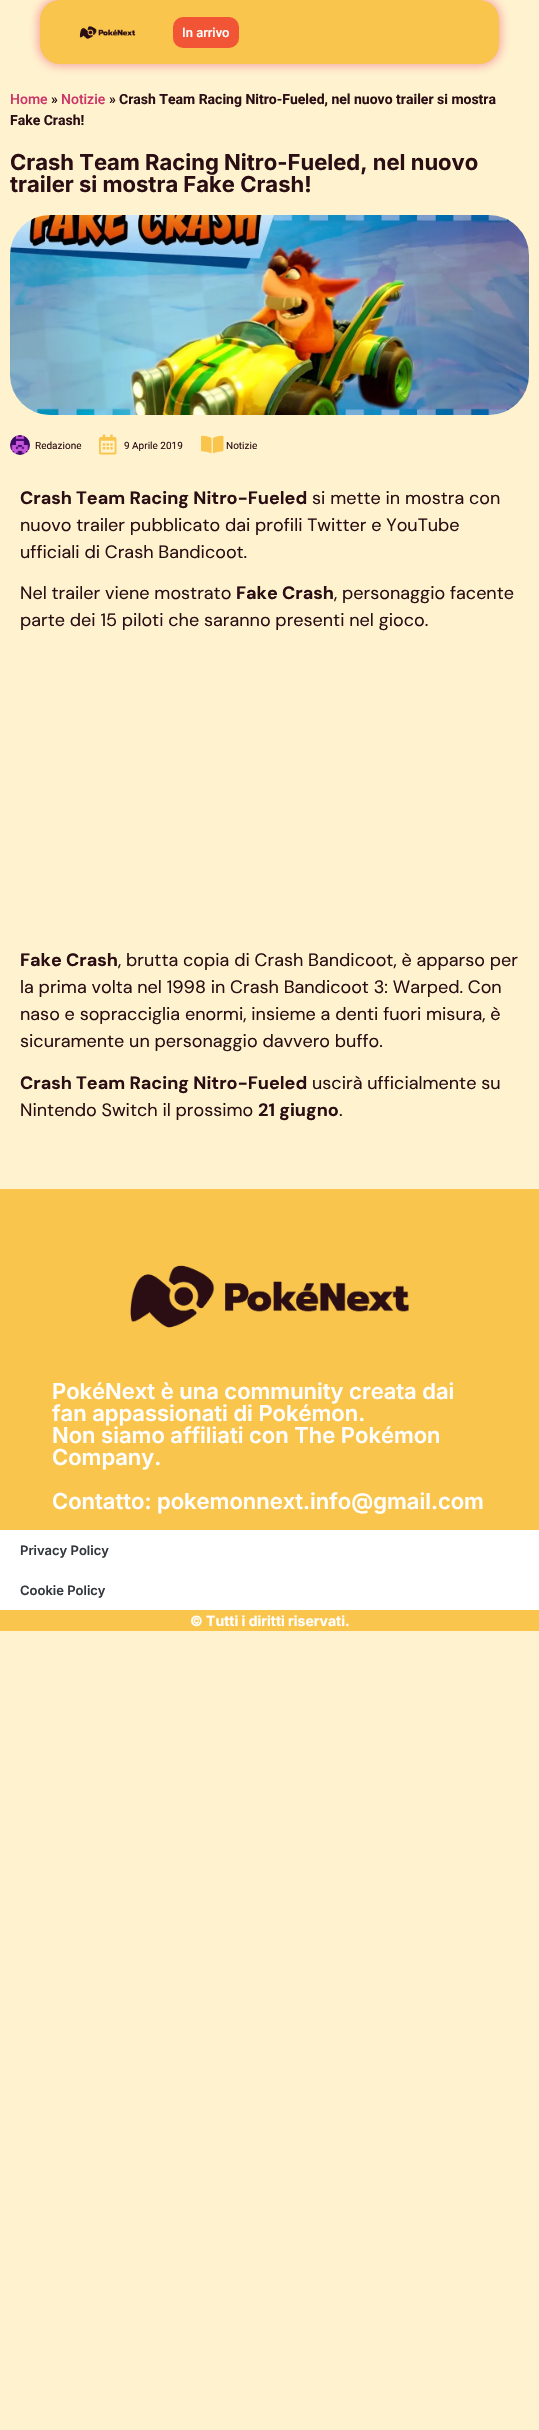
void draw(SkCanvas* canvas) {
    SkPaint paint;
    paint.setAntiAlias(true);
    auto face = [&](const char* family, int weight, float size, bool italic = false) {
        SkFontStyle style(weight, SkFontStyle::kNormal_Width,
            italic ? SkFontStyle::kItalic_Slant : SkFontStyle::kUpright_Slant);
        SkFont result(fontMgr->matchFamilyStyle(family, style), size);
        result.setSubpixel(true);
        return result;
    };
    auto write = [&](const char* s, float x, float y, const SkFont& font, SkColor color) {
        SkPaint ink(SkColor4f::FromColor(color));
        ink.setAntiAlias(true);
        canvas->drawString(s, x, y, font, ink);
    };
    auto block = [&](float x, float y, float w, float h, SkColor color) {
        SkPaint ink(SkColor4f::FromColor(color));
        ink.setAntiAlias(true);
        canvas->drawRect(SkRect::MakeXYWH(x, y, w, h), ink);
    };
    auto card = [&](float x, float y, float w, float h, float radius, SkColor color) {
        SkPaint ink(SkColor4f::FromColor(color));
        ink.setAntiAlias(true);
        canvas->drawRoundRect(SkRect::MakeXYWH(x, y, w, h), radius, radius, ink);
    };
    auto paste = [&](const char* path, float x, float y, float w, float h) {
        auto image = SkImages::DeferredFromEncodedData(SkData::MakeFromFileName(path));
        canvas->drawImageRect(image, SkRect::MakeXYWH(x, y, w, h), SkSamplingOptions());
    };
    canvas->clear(SkColorSetRGB(255, 242, 207));
    paint.setColor(SkColorSetARGB(94, 229, 34, 83));
    paint.setMaskFilter(SkMaskFilter::MakeBlur(kNormal_SkBlurStyle, 5));
    canvas->drawRoundRect(SkRect::MakeXYWH(38, -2, 463, 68), 22, 22, paint);
    paint.setMaskFilter(nullptr);
    card(40, 0, 459, 64, 20, SkColorSetRGB(249, 197, 77));
    paste("pic1.png", 79, 26, 57, 13);
    card(173, 17, 66, 31, 10, SkColorSetRGB(242, 85, 54));
    auto kFont1 = face("Roboto", 500, 13);
    write("In arrivo", 182, 37, kFont1, SK_ColorWHITE);
    auto kFont2 = face("Roboto", 500, 14);
    write("Home", 10, 104, kFont2, SkColorSetRGB(204, 51, 102));
    write("»", 51, 104, kFont2, SkColorSetRGB(42, 14, 19));
    write("Notizie", 61, 104, kFont2, SkColorSetRGB(204, 51, 102));
    write("»", 109, 104, kFont2, SkColorSetRGB(42, 14, 19));
    auto kFont3 = face("Roboto", 700, 14);
    write("Crash Team Racing Nitro-Fueled, nel nuovo trailer si mostra", 119, 104, kFont3, SkColorSetRGB(42, 14, 19));
    write("Fake Crash!", 10, 125, kFont3, SkColorSetRGB(42, 14, 19));
    auto kFont4 = face("Inter", 700, 22);
    write("Crash Team Racing Nitro-Fueled, nel nuovo", 10, 170, kFont4, SkColorSetRGB(42, 14, 19));
    write("trailer si mostra Fake Crash!", 10, 192, kFont4, SkColorSetRGB(42, 14, 19));
    paste("pic2.png", 10, 215, 519, 200);
    paste("pic3.png", 10, 435, 20, 20);
    auto kFont5 = face("Roboto", 400, 10);
    write("Redazione", 35, 449, kFont5, SkColorSetRGB(42, 14, 19));
    paste("pic4.png", 99, 434, 18, 21);
    write("9 Aprile 2019", 124, 449, kFont5, SkColorSetRGB(42, 14, 19));
    paste("pic5.png", 201, 435, 23, 19);
    write("Notizie", 226, 449, kFont5, SkColorSetRGB(42, 14, 19));
    auto kFont6 = face("DM Sans", 700, 18);
    write("Crash Team Racing Nitro-Fueled", 20, 504, kFont6, SkColorSetRGB(42, 14, 19));
    auto kFont7 = face("DM Sans", 400, 18);
    write("si mette in mostra con", 312, 504, kFont7, SkColorSetRGB(42, 14, 19));
    write("nuovo trailer pubblicato dai profili Twitter e YouTube", 20, 531, kFont7, SkColorSetRGB(42, 14, 19));
    write("ufficiali di Crash Bandicoot.", 20, 558, kFont7, SkColorSetRGB(42, 14, 19));
    write("Nel trailer viene mostrato", 20, 599, kFont7, SkColorSetRGB(42, 14, 19));
    write("Fake Crash", 236, 599, kFont6, SkColorSetRGB(42, 14, 19));
    write(", personaggio facente", 334, 599, kFont7, SkColorSetRGB(42, 14, 19));
    write("parte dei 15 piloti che saranno presenti nel gioco.", 20, 626, kFont7, SkColorSetRGB(42, 14, 19));
    write("Fake Crash", 20, 966, kFont6, SkColorSetRGB(42, 14, 19));
    write(", brutta copia di Crash Bandicoot, è apparso per", 118, 966, kFont7, SkColorSetRGB(42, 14, 19));
    write("la prima volta nel 1998 in Crash Bandicoot 3: Warped. Con", 20, 993, kFont7, SkColorSetRGB(42, 14, 19));
    write("naso e sopracciglia enormi, insieme a denti fuori misura, è", 20, 1020, kFont7, SkColorSetRGB(42, 14, 19));
    write("sicuramente un personaggio davvero buffo.", 20, 1047, kFont7, SkColorSetRGB(42, 14, 19));
    write("Crash Team Racing Nitro-Fueled", 20, 1089, kFont6, SkColorSetRGB(42, 14, 19));
    write("uscirà ufficialmente su", 312, 1089, kFont7, SkColorSetRGB(42, 14, 19));
    write("Nintendo Switch il prossimo", 20, 1116, kFont7, SkColorSetRGB(42, 14, 19));
    write("21 giugno", 258, 1116, kFont6, SkColorSetRGB(42, 14, 19));
    write(".", 339, 1116, kFont7, SkColorSetRGB(42, 14, 19));
    block(0, 1189, 539, 442, SkColorSetRGB(249, 197, 77));
    paste("pic6.png", 130, 1265, 279, 63);
    auto kFont8 = face("Inter", 600, 22);
    write("PokéNext è una community creata dai", 52, 1399, kFont8, SK_ColorWHITE);
    write("fan appassionati di Pokémon.", 52, 1421, kFont8, SK_ColorWHITE);
    write("Non siamo affiliati con The Pokémon", 52, 1443, kFont8, SK_ColorWHITE);
    write("Company.", 52, 1465, kFont8, SK_ColorWHITE);
    write("Contatto: pokemonnext.info@gmail.com", 52, 1509, kFont8, SK_ColorWHITE);
    block(0, 1530, 539, 80, SK_ColorWHITE);
    auto kFont9 = face("Inter", 600, 13);
    write("Privacy Policy", 20, 1555, kFont9, SkColorSetRGB(51, 55, 61));
    write("Cookie Policy", 20, 1595, kFont9, SkColorSetRGB(51, 55, 61));
    auto kFont10 = face("Inter", 700, 14);
    write("© Tutti i diritti riservati.", 190, 1626, kFont10, SK_ColorWHITE);
}
